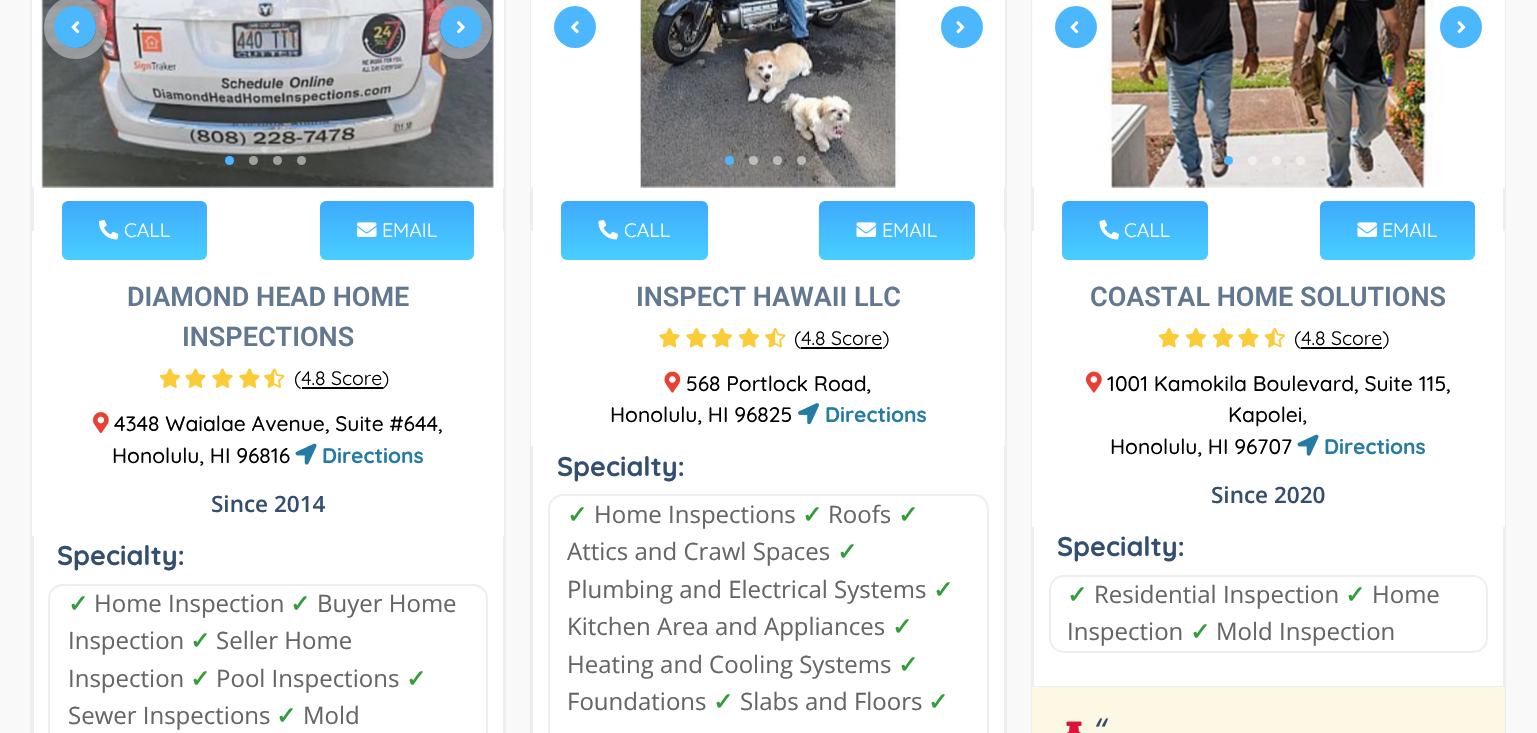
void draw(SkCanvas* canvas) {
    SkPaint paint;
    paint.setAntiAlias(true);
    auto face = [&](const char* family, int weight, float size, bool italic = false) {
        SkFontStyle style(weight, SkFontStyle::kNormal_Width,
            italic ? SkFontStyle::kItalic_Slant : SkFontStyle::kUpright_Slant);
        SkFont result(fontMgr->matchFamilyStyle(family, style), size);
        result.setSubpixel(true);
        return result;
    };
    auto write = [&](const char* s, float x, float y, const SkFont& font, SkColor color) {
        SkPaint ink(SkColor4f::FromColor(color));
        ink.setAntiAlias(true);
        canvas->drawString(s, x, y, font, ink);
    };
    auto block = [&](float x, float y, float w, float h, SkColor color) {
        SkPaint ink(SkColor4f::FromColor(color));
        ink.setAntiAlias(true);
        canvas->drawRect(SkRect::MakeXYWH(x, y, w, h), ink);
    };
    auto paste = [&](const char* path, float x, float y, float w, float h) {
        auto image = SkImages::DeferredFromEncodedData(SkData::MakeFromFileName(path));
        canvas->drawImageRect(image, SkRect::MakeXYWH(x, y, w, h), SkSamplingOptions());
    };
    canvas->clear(SkColorSetRGB(249, 249, 249));
    paint.setStyle(SkPaint::kStroke_Style);
    paint.setStrokeWidth(2);
    paint.setColor(SkColorSetRGB(238, 238, 238));
    canvas->drawRect(SkRect::MakeXYWH(31, -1, 474, 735), paint);
    block(34, 186, 469, 547, SK_ColorWHITE);
    block(503, 186, 1, 547, SkColorSetRGB(238, 238, 238));
    block(32, 186, 2, 547, SkColorSetRGB(238, 238, 238));
    paste("pic3.png", 32, 0, 472, 188);
    paint.setStrokeWidth(11);
    paint.setColor(SkColorSetARGB(102, 255, 255, 255));
    canvas->drawCircle(75.5f, 27.5f, 26, paint);
    paint.setStyle(SkPaint::kFill_Style);
    paint.setColor(SkColorSetRGB(77, 183, 254));
    canvas->drawCircle(75, 27, 21, paint);
    paste("pic1.png", 71, 21, 9, 13);
    paint.setStyle(SkPaint::kStroke_Style);
    paint.setColor(SkColorSetARGB(102, 255, 255, 255));
    canvas->drawCircle(460.5f, 27.5f, 26, paint);
    paint.setStyle(SkPaint::kFill_Style);
    paint.setColor(SkColorSetRGB(77, 183, 254));
    canvas->drawCircle(461, 27, 21, paint);
    paste("pic2.png", 457, 21, 8, 13);
    canvas->drawCircle(229.5f, 160.5f, 4.5f, paint);
    paint.setColor(SkColorSetARGB(130, 255, 255, 255));
    canvas->drawCircle(253.5f, 160.5f, 4.5f, paint);
    canvas->drawCircle(277.5f, 160.5f, 4.5f, paint);
    canvas->drawCircle(301.5f, 160.5f, 4.5f, paint);
    block(32, 231, 472, 305, SK_ColorWHITE);
    {
        const SkColor colors[] = {SkColorSetRGB(62, 170, 253), SkColorSetRGB(73, 206, 255)};
        const float stops[] = {0, 1};
        const SkPoint ends[] = {{134, 201}, {134, 260}};
        paint.setShader(SkGradientShader::MakeLinear(ends, colors, stops, 2, SkTileMode::kClamp));
        paint.setAlpha(255);
    }
    canvas->drawRoundRect(SkRect::MakeXYWH(62, 201, 145, 59), 6, 6, paint);
    paste("pic4.png", 99, 220, 20, 20);
    auto kFont1 = face("Quicksand", 400, 19.5f);
    write("CALL", 124, 237, kFont1, SK_ColorWHITE);
    {
        const SkColor colors[] = {SkColorSetRGB(62, 170, 253), SkColorSetRGB(73, 206, 255)};
        const float stops[] = {0, 1};
        const SkPoint ends[] = {{397, 201}, {397, 260}};
        paint.setShader(SkGradientShader::MakeLinear(ends, colors, stops, 2, SkTileMode::kClamp));
        paint.setAlpha(255);
    }
    canvas->drawRoundRect(SkRect::MakeXYWH(320, 201, 154, 59), 6, 6, paint);
    paste("pic5.png", 357, 222, 20, 15);
    write("EMAIL", 382, 237, kFont1, SK_ColorWHITE);
    auto kFont2 = face("Roboto", 600, 27);
    write("DIAMOND HEAD HOME", 127, 306, kFont2, SkColorSetRGB(98, 119, 144));
    write("INSPECTIONS", 182, 346, kFont2, SkColorSetRGB(98, 119, 144));
    paste("pic6.png", 159, 368, 22, 20);
    paste("pic7.png", 185, 368, 21, 20);
    paste("pic7.png", 212, 368, 21, 20);
    paste("pic7.png", 239, 368, 21, 20);
    paste("pic8.png", 264, 368, 21, 20);
    write("(4.8 Score", 294, 385, kFont1, SK_ColorBLACK);
    block(302, 387, 81, 2, SK_ColorBLACK);
    write(")", 382, 385, kFont1, SK_ColorBLACK);
    paste("pic9.png", 93, 412, 16, 22);
    auto kFont3 = face("Quicksand", 500, 21);
    write("4348 Waialae Avenue, Suite #644,", 114, 431, kFont3, SK_ColorBLACK);
    write("Honolulu, HI 96816", 112, 463, kFont3, SK_ColorBLACK);
    paste("pic10.png", 295, 443, 22, 22);
    auto kFont4 = face("Quicksand", 700, 21);
    write("Directions", 322, 463, kFont4, SkColorSetRGB(36, 123, 163));
    auto kFont5 = face("Open Sans", 600, 22.5f);
    write("Since 2014", 211, 512, kFont5, SkColorSetRGB(51, 78, 111));
    auto kFont6 = face("Quicksand", 700, 27);
    write("Specialty:", 57, 565, kFont6, SkColorSetRGB(51, 78, 111));
    paint.setStyle(SkPaint::kStroke_Style);
    paint.setStrokeWidth(2);
    paint.setShader(nullptr);
    paint.setColor(SkColorSetRGB(238, 238, 238));
    canvas->drawRoundRect(SkRect::MakeXYWH(49, 585, 438, 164), 14, 14, paint);
    auto kFont7 = face("DejaVu Sans", 700, 24);
    write("✓", 68, 612, kFont7, SkColorSetRGB(51, 157, 58));
    auto kFont8 = face("Open Sans", 400, 24);
    write("Home Inspection", 94, 612, kFont8, SkColorSetRGB(102, 102, 102));
    write("✓", 290, 612, kFont7, SkColorSetRGB(51, 157, 58));
    write("Buyer Home", 317, 612, kFont8, SkColorSetRGB(102, 102, 102));
    write("Inspection", 68, 649, kFont8, SkColorSetRGB(102, 102, 102));
    write("✓", 190, 649, kFont7, SkColorSetRGB(51, 157, 58));
    write("Seller Home", 216, 649, kFont8, SkColorSetRGB(102, 102, 102));
    write("Inspection", 68, 687, kFont8, SkColorSetRGB(102, 102, 102));
    write("✓", 190, 687, kFont7, SkColorSetRGB(51, 157, 58));
    write("Pool Inspections", 216, 687, kFont8, SkColorSetRGB(102, 102, 102));
    write("✓", 406, 687, kFont7, SkColorSetRGB(51, 157, 58));
    write("Sewer Inspections", 68, 724, kFont8, SkColorSetRGB(102, 102, 102));
    write("✓", 276, 724, kFont7, SkColorSetRGB(51, 157, 58));
    write("Mold", 303, 724, kFont8, SkColorSetRGB(102, 102, 102));
    canvas->drawRect(SkRect::MakeXYWH(531, -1, 475, 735), paint);
    block(533, 186, 471, 547, SK_ColorWHITE);
    block(1004, 186, 1, 547, SkColorSetRGB(238, 238, 238));
    block(532, 186, 1, 547, SkColorSetRGB(238, 238, 238));
    paste("pic11.png", 531, 0, 474, 188);
    paint.setStyle(SkPaint::kFill_Style);
    paint.setColor(SkColorSetRGB(77, 183, 254));
    canvas->drawCircle(729.5f, 160.5f, 4.5f, paint);
    paint.setColor(SkColorSetARGB(130, 255, 255, 255));
    canvas->drawCircle(753.5f, 160.5f, 4.5f, paint);
    canvas->drawCircle(777.5f, 160.5f, 4.5f, paint);
    canvas->drawCircle(801.5f, 160.5f, 4.5f, paint);
    paint.setColor(SkColorSetRGB(77, 183, 254));
    canvas->drawCircle(575, 27, 21, paint);
    paste("pic12.png", 571, 21, 8, 13);
    canvas->drawCircle(962, 27, 21, paint);
    paste("pic13.png", 956, 21, 9, 13);
    block(531, 231, 474, 215, SK_ColorWHITE);
    {
        const SkColor colors[] = {SkColorSetRGB(62, 170, 253), SkColorSetRGB(73, 206, 255)};
        const float stops[] = {0, 1};
        const SkPoint ends[] = {{635, 201}, {635, 260}};
        paint.setShader(SkGradientShader::MakeLinear(ends, colors, stops, 2, SkTileMode::kClamp));
        paint.setAlpha(255);
    }
    canvas->drawRoundRect(SkRect::MakeXYWH(561, 201, 147, 59), 6, 6, paint);
    paste("pic14.png", 598, 220, 20, 20);
    write("CALL", 624, 237, kFont1, SK_ColorWHITE);
    {
        const SkColor colors[] = {SkColorSetRGB(62, 170, 253), SkColorSetRGB(73, 206, 255)};
        const float stops[] = {0, 1};
        const SkPoint ends[] = {{897, 201}, {897, 260}};
        paint.setShader(SkGradientShader::MakeLinear(ends, colors, stops, 2, SkTileMode::kClamp));
        paint.setAlpha(255);
    }
    canvas->drawRoundRect(SkRect::MakeXYWH(819, 201, 156, 59), 6, 6, paint);
    paste("pic15.png", 856, 222, 20, 15);
    write("EMAIL", 882, 237, kFont1, SK_ColorWHITE);
    write("INSPECT HAWAII LLC", 636, 306, kFont2, SkColorSetRGB(98, 119, 144));
    paste("pic16.png", 659, 328, 21, 20);
    paste("pic16.png", 686, 328, 21, 20);
    paste("pic17.png", 711, 328, 22, 20);
    paste("pic17.png", 738, 328, 22, 20);
    paste("pic18.png", 765, 328, 21, 20);
    write("(4.8 Score)", 794, 345, kFont1, SK_ColorBLACK);
    block(801, 347, 81, 2, SK_ColorBLACK);
    paste("pic19.png", 664, 371, 17, 22);
    write("568 Portlock Road,", 686, 391, kFont3, SK_ColorBLACK);
    write("Honolulu, HI 96825", 610, 422, kFont3, SK_ColorBLACK);
    paste("pic20.png", 798, 403, 21, 22);
    write("Directions", 825, 422, kFont4, SkColorSetRGB(36, 123, 163));
    write("Specialty:", 557, 476, kFont6, SkColorSetRGB(51, 78, 111));
    paint.setStyle(SkPaint::kStroke_Style);
    paint.setShader(nullptr);
    paint.setColor(SkColorSetRGB(238, 238, 238));
    canvas->drawRoundRect(SkRect::MakeXYWH(549, 495, 439, 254), 14, 14, paint);
    write("✓", 567, 523, kFont7, SkColorSetRGB(51, 157, 58));
    write("Home Inspections", 594, 523, kFont8, SkColorSetRGB(102, 102, 102));
    write("✓", 802, 523, kFont7, SkColorSetRGB(51, 157, 58));
    write("Roofs", 828, 523, kFont8, SkColorSetRGB(102, 102, 102));
    write("✓", 898, 523, kFont7, SkColorSetRGB(51, 157, 58));
    write("Attics and Crawl Spaces", 567, 560, kFont8, SkColorSetRGB(102, 102, 102));
    write("✓", 837, 560, kFont7, SkColorSetRGB(51, 157, 58));
    write("Plumbing and Electrical Systems", 567, 598, kFont8, SkColorSetRGB(102, 102, 102));
    write("✓", 933, 598, kFont7, SkColorSetRGB(51, 157, 58));
    write("Kitchen Area and Appliances", 567, 635, kFont8, SkColorSetRGB(102, 102, 102));
    write("✓", 892, 635, kFont7, SkColorSetRGB(51, 157, 58));
    write("Heating and Cooling Systems", 567, 673, kFont8, SkColorSetRGB(102, 102, 102));
    write("✓", 898, 673, kFont7, SkColorSetRGB(51, 157, 58));
    write("Foundations", 567, 710, kFont8, SkColorSetRGB(102, 102, 102));
    write("✓", 713, 710, kFont7, SkColorSetRGB(51, 157, 58));
    write("Slabs and Floors", 740, 710, kFont8, SkColorSetRGB(102, 102, 102));
    write("✓", 928, 710, kFont7, SkColorSetRGB(51, 157, 58));
    canvas->drawRect(SkRect::MakeXYWH(1032, -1, 473, 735), paint);
    block(1034, 186, 469, 500, SK_ColorWHITE);
    block(1503, 186, 1, 501, SkColorSetRGB(238, 238, 238));
    block(1032, 686, 473, 1, SkColorSetRGB(238, 238, 238));
    block(1033, 0, 1, 687, SkColorSetRGB(238, 238, 238));
    paste("pic21.png", 1032, 0, 473, 188);
    paint.setStyle(SkPaint::kFill_Style);
    paint.setColor(SkColorSetRGB(77, 183, 254));
    canvas->drawCircle(1228.5f, 160.5f, 4.5f, paint);
    paint.setColor(SkColorSetARGB(130, 255, 255, 255));
    canvas->drawCircle(1252.5f, 160.5f, 4.5f, paint);
    canvas->drawCircle(1276.5f, 160.5f, 4.5f, paint);
    canvas->drawCircle(1300.5f, 160.5f, 4.5f, paint);
    paint.setColor(SkColorSetRGB(77, 183, 254));
    canvas->drawCircle(1076, 27, 21, paint);
    paste("pic1.png", 1070, 21, 9, 13);
    canvas->drawCircle(1461, 27, 21, paint);
    paste("pic13.png", 1457, 21, 9, 13);
    block(1032, 231, 473, 296, SK_ColorWHITE);
    {
        const SkColor colors[] = {SkColorSetRGB(62, 170, 253), SkColorSetRGB(73, 206, 255)};
        const float stops[] = {0, 1};
        const SkPoint ends[] = {{1135, 201}, {1135, 260}};
        paint.setShader(SkGradientShader::MakeLinear(ends, colors, stops, 2, SkTileMode::kClamp));
        paint.setAlpha(255);
    }
    canvas->drawRoundRect(SkRect::MakeXYWH(1062, 201, 146, 59), 6, 6, paint);
    paste("pic14.png", 1099, 220, 20, 20);
    write("CALL", 1124, 237, kFont1, SK_ColorWHITE);
    {
        const SkColor colors[] = {SkColorSetRGB(62, 170, 253), SkColorSetRGB(73, 206, 255)};
        const float stops[] = {0, 1};
        const SkPoint ends[] = {{1397, 201}, {1397, 260}};
        paint.setShader(SkGradientShader::MakeLinear(ends, colors, stops, 2, SkTileMode::kClamp));
        paint.setAlpha(255);
    }
    canvas->drawRoundRect(SkRect::MakeXYWH(1320, 201, 155, 59), 6, 6, paint);
    paste("pic15.png", 1357, 222, 20, 15);
    write("EMAIL", 1382, 237, kFont1, SK_ColorWHITE);
    write("COASTAL HOME SOLUTIONS", 1090, 306, kFont2, SkColorSetRGB(98, 119, 144));
    paste("pic17.png", 1158, 328, 22, 20);
    paste("pic17.png", 1185, 328, 22, 20);
    paste("pic17.png", 1212, 328, 22, 20);
    paste("pic16.png", 1238, 328, 21, 20);
    paste("pic22.png", 1264, 328, 21, 20);
    write("(4.8 Score)", 1294, 345, kFont1, SK_ColorBLACK);
    block(1301, 347, 81, 2, SK_ColorBLACK);
    paste("pic23.png", 1086, 371, 16, 22);
    write("1001 Kamokila Boulevard, Suite 115,", 1107, 391, kFont3, SK_ColorBLACK);
    write("Kapolei,", 1228, 422, kFont3, SK_ColorBLACK);
    write("Honolulu, HI 96707", 1110, 454, kFont3, SK_ColorBLACK);
    paste("pic10.png", 1297, 434, 22, 22);
    write("Directions", 1324, 454, kFont4, SkColorSetRGB(36, 123, 163));
    write("Since 2020", 1211, 503, kFont5, SkColorSetRGB(51, 78, 111));
    write("Specialty:", 1057, 556, kFont6, SkColorSetRGB(51, 78, 111));
    paint.setStyle(SkPaint::kStroke_Style);
    paint.setShader(nullptr);
    paint.setColor(SkColorSetRGB(238, 238, 238));
    canvas->drawRoundRect(SkRect::MakeXYWH(1050, 576, 437, 76), 14, 14, paint);
    write("✓", 1067, 603, kFont7, SkColorSetRGB(51, 157, 58));
    write("Residential Inspection", 1094, 603, kFont8, SkColorSetRGB(102, 102, 102));
    write("✓", 1345, 603, kFont7, SkColorSetRGB(51, 157, 58));
    write("Home", 1372, 603, kFont8, SkColorSetRGB(102, 102, 102));
    write("Inspection", 1067, 640, kFont8, SkColorSetRGB(102, 102, 102));
    write("✓", 1190, 640, kFont7, SkColorSetRGB(51, 157, 58));
    write("Mold Inspection", 1216, 640, kFont8, SkColorSetRGB(102, 102, 102));
    block(1032, 687, 473, 46, SkColorSetRGB(252, 248, 227));
    paste("pic24.png", 1066, 721, 16, 12);
    auto kFont9 = face("Open Sans", 400, 33, true);
    write("“", 1094, 742, kFont9, SkColorSetRGB(51, 78, 111));
}
